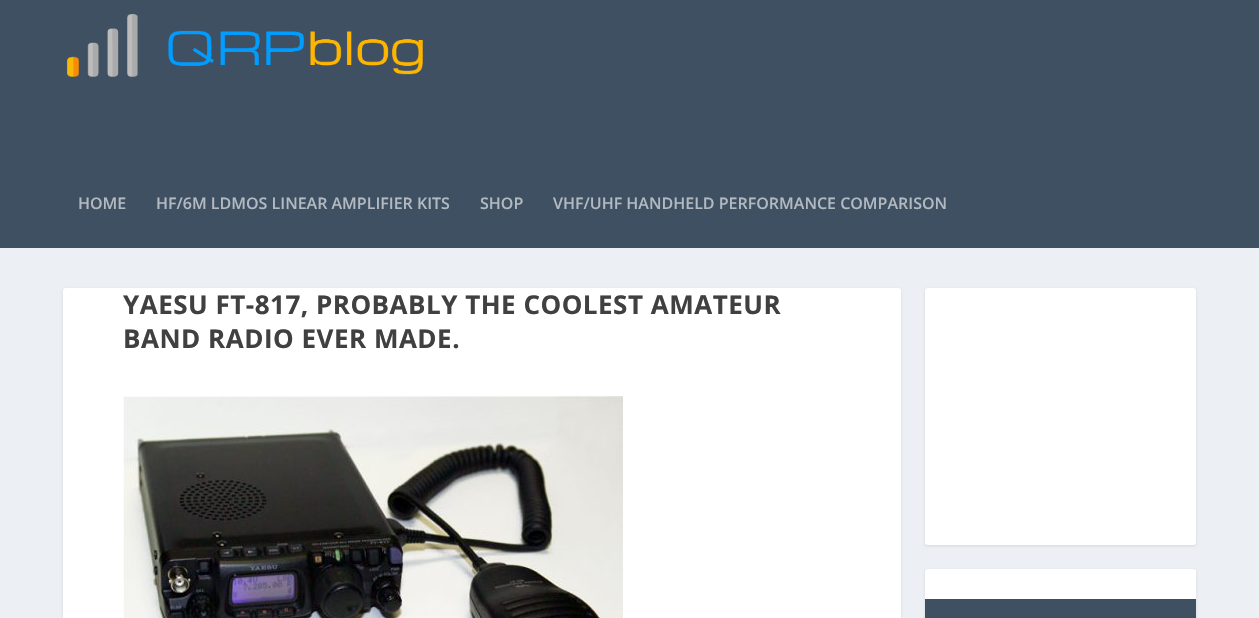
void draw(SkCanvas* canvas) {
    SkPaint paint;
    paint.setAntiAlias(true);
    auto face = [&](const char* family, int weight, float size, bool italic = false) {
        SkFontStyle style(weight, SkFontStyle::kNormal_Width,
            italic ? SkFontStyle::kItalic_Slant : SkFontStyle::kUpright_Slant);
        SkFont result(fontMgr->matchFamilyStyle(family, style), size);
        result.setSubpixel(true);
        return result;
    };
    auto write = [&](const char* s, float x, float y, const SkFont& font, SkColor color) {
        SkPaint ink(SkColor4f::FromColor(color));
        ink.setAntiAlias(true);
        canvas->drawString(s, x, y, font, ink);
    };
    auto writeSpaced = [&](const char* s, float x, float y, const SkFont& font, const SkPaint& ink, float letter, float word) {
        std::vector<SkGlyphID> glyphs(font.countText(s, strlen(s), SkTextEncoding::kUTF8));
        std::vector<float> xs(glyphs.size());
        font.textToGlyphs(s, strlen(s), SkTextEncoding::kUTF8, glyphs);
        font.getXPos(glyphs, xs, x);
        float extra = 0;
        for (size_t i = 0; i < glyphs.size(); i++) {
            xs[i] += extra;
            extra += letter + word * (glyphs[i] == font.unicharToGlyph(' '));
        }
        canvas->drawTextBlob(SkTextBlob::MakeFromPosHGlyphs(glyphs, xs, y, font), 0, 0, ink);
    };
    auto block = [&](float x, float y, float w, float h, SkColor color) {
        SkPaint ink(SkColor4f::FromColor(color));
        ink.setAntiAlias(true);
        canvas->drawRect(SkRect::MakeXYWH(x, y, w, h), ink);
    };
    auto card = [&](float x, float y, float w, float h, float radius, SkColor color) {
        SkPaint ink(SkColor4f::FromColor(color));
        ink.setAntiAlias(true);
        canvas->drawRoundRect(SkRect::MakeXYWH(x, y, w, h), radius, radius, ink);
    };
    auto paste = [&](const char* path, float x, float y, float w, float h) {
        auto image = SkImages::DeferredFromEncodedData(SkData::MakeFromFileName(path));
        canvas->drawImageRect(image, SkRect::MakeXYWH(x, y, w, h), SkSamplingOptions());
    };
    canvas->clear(SkColorSetRGB(236, 240, 245));
    block(0, 0, 1259, 248, SkColorSetRGB(62, 80, 98));
    paste("pic1.png", 67, 14, 356, 63);
    auto kFont1 = face("Open Sans", 600, 16);
    write("HOME", 78, 209, kFont1, SkColorSetRGB(178, 185, 192));
    write("HF/6M LDMOS LINEAR AMPLIFIER KITS", 156, 209, kFont1, SkColorSetRGB(178, 185, 192));
    write("SHOP", 480, 209, kFont1, SkColorSetRGB(178, 185, 192));
    write("VHF/UHF HANDHELD PERFORMANCE COMPARISON", 553, 209, kFont1, SkColorSetRGB(178, 185, 192));
    paint.setColor(SkColorSetARGB(26, 0, 0, 0));
    paint.setMaskFilter(SkMaskFilter::MakeBlur(kNormal_SkBlurStyle, 1.5f));
    canvas->drawRoundRect(SkRect::MakeXYWH(63, 289, 838, 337), 3, 3, paint);
    paint.setMaskFilter(nullptr);
    card(63, 288, 838, 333, 3, SK_ColorWHITE);
    auto kFont2 = face("Open Sans", 700, 26);
    paint.setColor(SkColorSetRGB(64, 64, 64));
    writeSpaced("YAESU FT-817, PROBABLY THE COOLEST AMATEUR", 123, 314, kFont2, paint, 0.5f, 0);
    writeSpaced("BAND RADIO EVER MADE.", 123, 348, kFont2, paint, 0.5f, 0);
    paste("pic2.png", 123, 396, 500, 222);
    paint.setColor(SkColorSetARGB(26, 0, 0, 0));
    paint.setMaskFilter(SkMaskFilter::MakeBlur(kNormal_SkBlurStyle, 1.5f));
    canvas->drawRoundRect(SkRect::MakeXYWH(925, 289, 271, 257), 3, 3, paint);
    paint.setMaskFilter(nullptr);
    card(925, 288, 271, 257, 3, SK_ColorWHITE);
    paint.setMaskFilter(SkMaskFilter::MakeBlur(kNormal_SkBlurStyle, 1.5f));
    canvas->drawRoundRect(SkRect::MakeXYWH(925, 570, 271, 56), 3, 3, paint);
    paint.setMaskFilter(nullptr);
    card(925, 569, 271, 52, 3, SK_ColorWHITE);
    block(925, 599, 271, 19, SkColorSetRGB(62, 80, 98));
}
